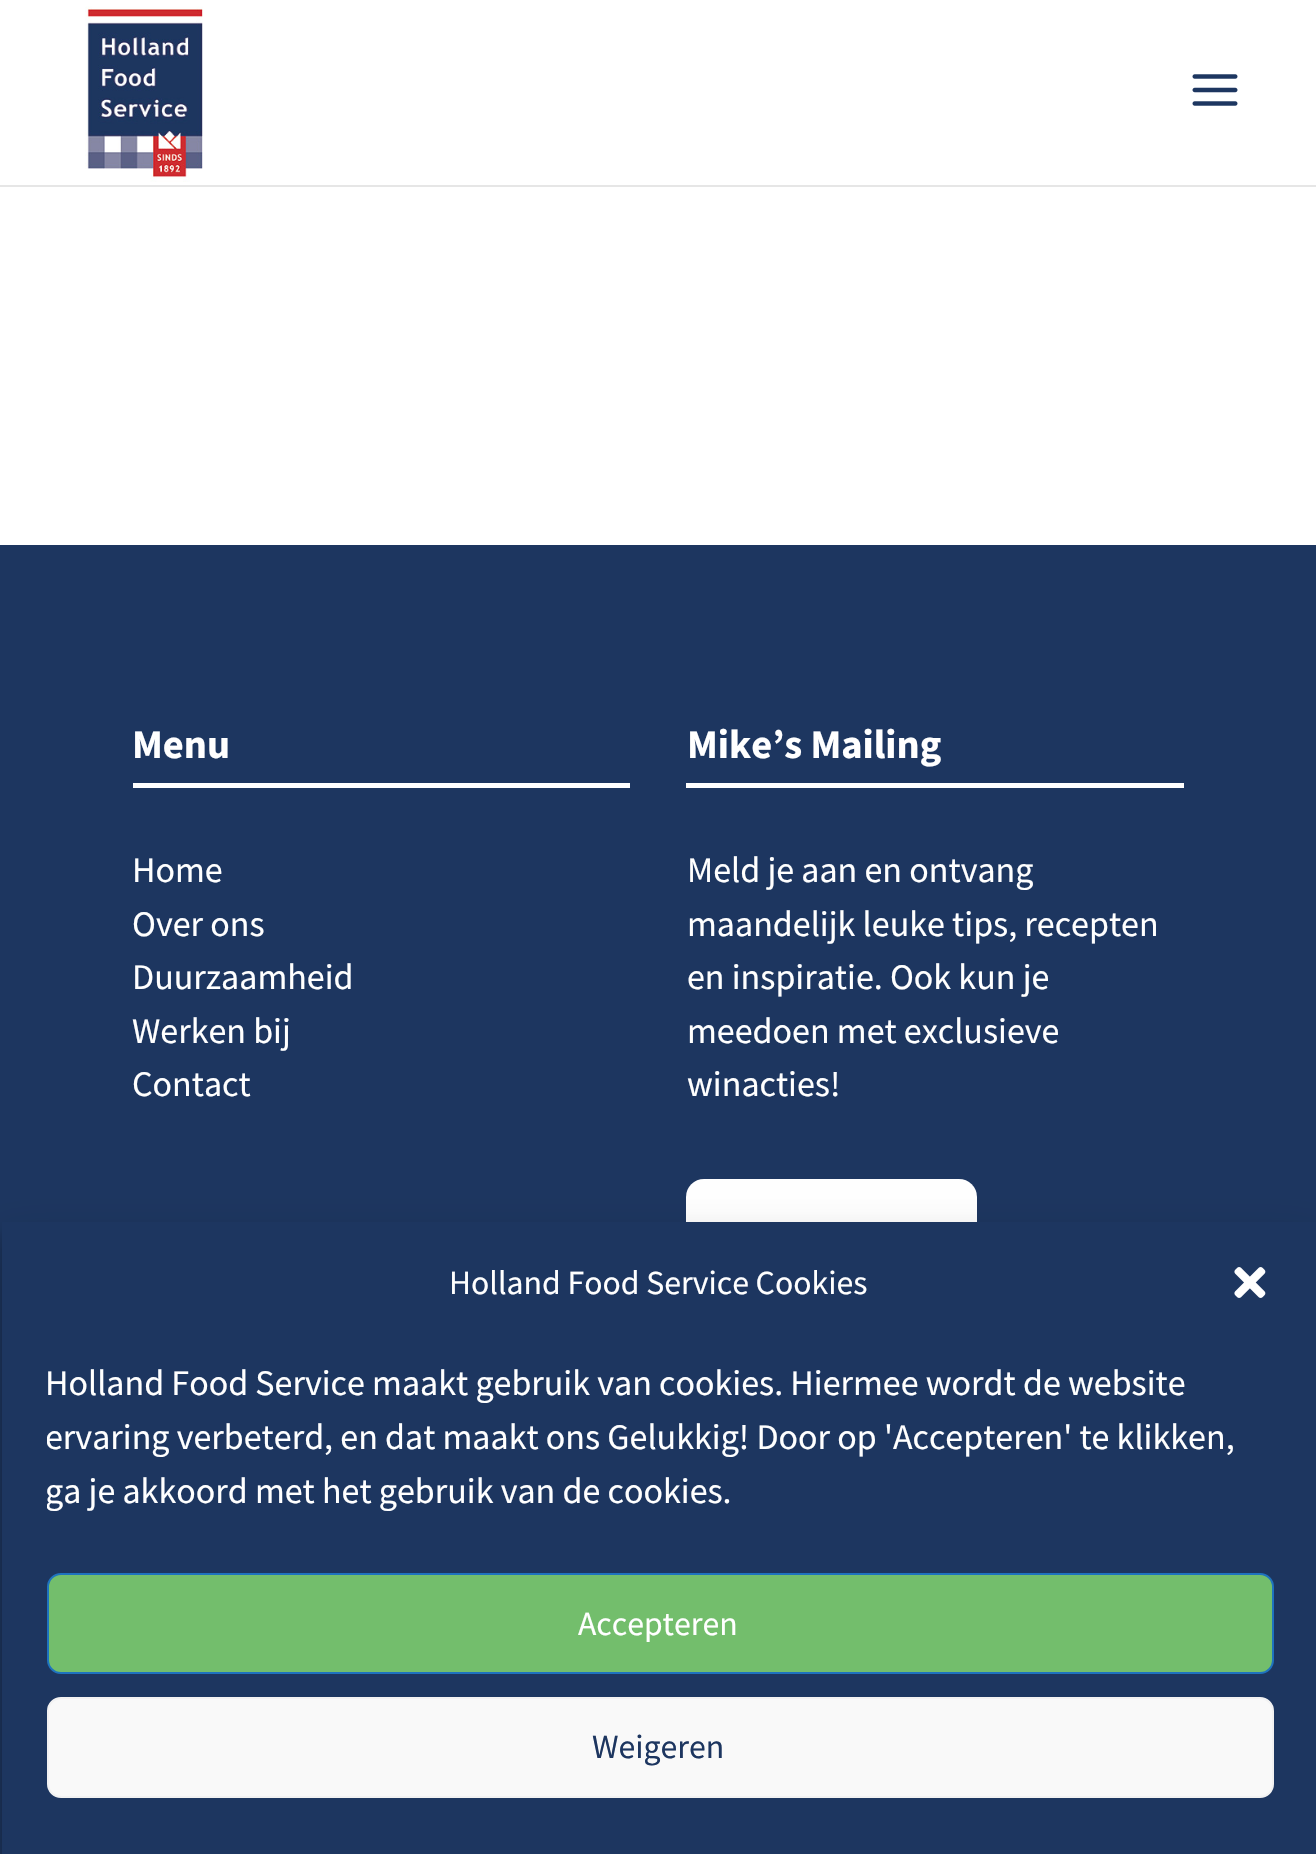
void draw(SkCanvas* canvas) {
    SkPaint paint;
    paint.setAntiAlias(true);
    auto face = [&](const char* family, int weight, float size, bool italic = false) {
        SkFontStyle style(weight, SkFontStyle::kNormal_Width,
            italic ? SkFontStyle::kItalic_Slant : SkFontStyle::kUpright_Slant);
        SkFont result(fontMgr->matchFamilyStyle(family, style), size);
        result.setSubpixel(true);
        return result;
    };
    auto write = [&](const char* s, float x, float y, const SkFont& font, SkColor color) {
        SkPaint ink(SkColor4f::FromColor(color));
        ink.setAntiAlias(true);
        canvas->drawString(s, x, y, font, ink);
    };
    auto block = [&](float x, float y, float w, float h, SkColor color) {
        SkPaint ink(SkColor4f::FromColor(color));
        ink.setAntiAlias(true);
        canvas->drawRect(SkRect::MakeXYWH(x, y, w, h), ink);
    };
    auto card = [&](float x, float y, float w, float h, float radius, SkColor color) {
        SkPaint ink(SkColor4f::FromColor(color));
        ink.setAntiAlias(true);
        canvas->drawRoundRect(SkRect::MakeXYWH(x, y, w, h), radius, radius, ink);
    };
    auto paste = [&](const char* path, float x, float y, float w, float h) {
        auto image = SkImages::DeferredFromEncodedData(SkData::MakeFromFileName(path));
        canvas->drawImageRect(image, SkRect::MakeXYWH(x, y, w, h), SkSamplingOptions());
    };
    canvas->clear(SK_ColorWHITE);
    block(0, 185, 1316, 2, SkColorSetRGB(230, 230, 230));
    paste("pic1.png", 85, 6, 118, 176);
    paste("pic2.png", 1192, 74, 46, 32);
    block(0, 545, 1316, 1309, SkColorSetRGB(29, 54, 96));
    auto kFont1 = face("Source Sans Pro", 700, 40.5f);
    write("Menu", 132, 758, kFont1, SK_ColorWHITE);
    block(133, 783, 497, 5, SK_ColorWHITE);
    auto kFont2 = face("Source Sans Pro", 400, 36);
    write("Home", 132, 882, kFont2, SK_ColorWHITE);
    write("Over ons", 132, 936, kFont2, SK_ColorWHITE);
    write("Duurzaamheid", 132, 989, kFont2, SK_ColorWHITE);
    write("Werken bij", 132, 1043, kFont2, SK_ColorWHITE);
    write("Contact", 132, 1096, kFont2, SK_ColorWHITE);
    write("Mike’s Mailing", 687, 758, kFont1, SK_ColorWHITE);
    block(686, 783, 498, 5, SK_ColorWHITE);
    write("Meld je aan en ontvang", 687, 882, kFont2, SK_ColorWHITE);
    write("maandelijk leuke tips, recepten", 687, 936, kFont2, SK_ColorWHITE);
    write("en inspiratie. Ook kun je", 687, 989, kFont2, SK_ColorWHITE);
    write("meedoen met exclusieve", 687, 1043, kFont2, SK_ColorWHITE);
    write("winacties!", 687, 1096, kFont2, SK_ColorWHITE);
    card(686, 1179, 291, 77, 18, SK_ColorWHITE);
    paint.setColor(SkColorSetARGB(59, 0, 0, 0));
    paint.setMaskFilter(SkMaskFilter::MakeBlur(kNormal_SkBlurStyle, 7));
    canvas->drawRect(SkRect::MakeXYWH(2, 1235, 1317, 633), paint);
    paint.setMaskFilter(nullptr);
    paint.setColor(SkColorSetARGB(48, 0, 0, 0));
    paint.setMaskFilter(SkMaskFilter::MakeBlur(kNormal_SkBlurStyle, 22.5f));
    canvas->drawRect(SkRect::MakeXYWH(2, 1244, 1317, 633), paint);
    paint.setMaskFilter(nullptr);
    block(2, 1222, 1314, 632, SkColorSetRGB(29, 54, 96));
    auto kFont3 = face("Source Sans Pro", 400, 33.75f);
    write("Holland Food Service Cookies", 449, 1294, kFont3, SK_ColorWHITE);
    paste("pic3.png", 1234, 1267, 32, 31);
    write("Holland Food Service maakt gebruik van cookies. Hiermee wordt de website", 45, 1395, kFont2, SK_ColorWHITE);
    canvas->save();
    canvas->clipRect(SkRect::MakeXYWH(47, 1355, 1227, 173));
    write("ervaring verbeterd, en dat maakt ons Gelukkig! Door op 'Accepteren' te klikken,", 45, 1449, kFont2, SK_ColorWHITE);
    write("ga je akkoord met het gebruik van de cookies.", 45, 1503, kFont2, SK_ColorWHITE);
    canvas->restore();
    paint.setColor(SkColorSetRGB(115, 190, 108));
    canvas->drawRoundRect(SkRect::MakeXYWH(48, 1574, 1225, 99), 13, 13, paint);
    paint.setStyle(SkPaint::kStroke_Style);
    paint.setStrokeWidth(2);
    paint.setColor(SkColorSetRGB(30, 115, 190));
    canvas->drawRoundRect(SkRect::MakeXYWH(48, 1574, 1225, 99), 13, 13, paint);
    write("Accepteren", 578, 1635, kFont3, SK_ColorWHITE);
    paint.setStyle(SkPaint::kFill_Style);
    paint.setColor(SkColorSetRGB(249, 249, 249));
    canvas->drawRoundRect(SkRect::MakeXYWH(48, 1698, 1225, 99), 13, 13, paint);
    paint.setStyle(SkPaint::kStroke_Style);
    paint.setColor(SkColorSetRGB(242, 242, 242));
    canvas->drawRoundRect(SkRect::MakeXYWH(48, 1698, 1225, 99), 13, 13, paint);
    write("Weigeren", 592, 1758, kFont3, SkColorSetRGB(29, 54, 96));
}
